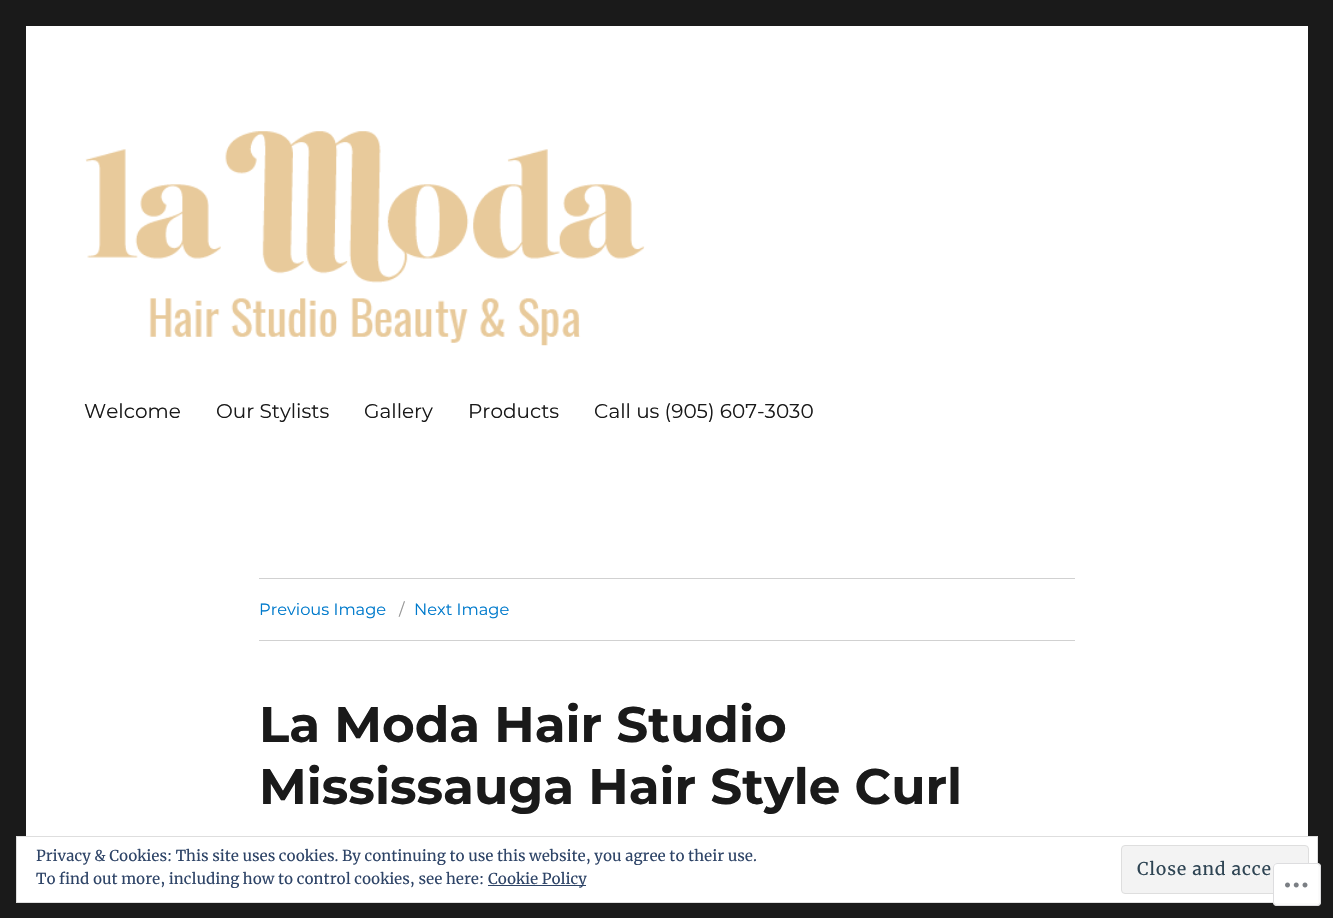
void draw(SkCanvas* canvas) {
    SkPaint paint;
    paint.setAntiAlias(true);
    auto face = [&](const char* family, int weight, float size, bool italic = false) {
        SkFontStyle style(weight, SkFontStyle::kNormal_Width,
            italic ? SkFontStyle::kItalic_Slant : SkFontStyle::kUpright_Slant);
        SkFont result(fontMgr->matchFamilyStyle(family, style), size);
        result.setSubpixel(true);
        return result;
    };
    auto write = [&](const char* s, float x, float y, const SkFont& font, SkColor color) {
        SkPaint ink(SkColor4f::FromColor(color));
        ink.setAntiAlias(true);
        canvas->drawString(s, x, y, font, ink);
    };
    auto writeSpaced = [&](const char* s, float x, float y, const SkFont& font, const SkPaint& ink, float letter, float word) {
        std::vector<SkGlyphID> glyphs(font.countText(s, strlen(s), SkTextEncoding::kUTF8));
        std::vector<float> xs(glyphs.size());
        font.textToGlyphs(s, strlen(s), SkTextEncoding::kUTF8, glyphs);
        font.getXPos(glyphs, xs, x);
        float extra = 0;
        for (size_t i = 0; i < glyphs.size(); i++) {
            xs[i] += extra;
            extra += letter + word * (glyphs[i] == font.unicharToGlyph(' '));
        }
        canvas->drawTextBlob(SkTextBlob::MakeFromPosHGlyphs(glyphs, xs, y, font), 0, 0, ink);
    };
    auto block = [&](float x, float y, float w, float h, SkColor color) {
        SkPaint ink(SkColor4f::FromColor(color));
        ink.setAntiAlias(true);
        canvas->drawRect(SkRect::MakeXYWH(x, y, w, h), ink);
    };
    auto card = [&](float x, float y, float w, float h, float radius, SkColor color) {
        SkPaint ink(SkColor4f::FromColor(color));
        ink.setAntiAlias(true);
        canvas->drawRoundRect(SkRect::MakeXYWH(x, y, w, h), radius, radius, ink);
    };
    auto paste = [&](const char* path, float x, float y, float w, float h) {
        auto image = SkImages::DeferredFromEncodedData(SkData::MakeFromFileName(path));
        canvas->drawImageRect(image, SkRect::MakeXYWH(x, y, w, h), SkSamplingOptions());
    };
    canvas->clear(SkColorSetRGB(26, 26, 26));
    block(26, 26, 1282, 810, SK_ColorWHITE);
    paste("pic1.png", 85, 131, 560, 215);
    auto kFont1 = face("Montserrat", 100, 20);
    write("Welcome", 84, 418, kFont1, SkColorSetRGB(26, 26, 26));
    write("Our Stylists", 216, 418, kFont1, SkColorSetRGB(26, 26, 26));
    write("Gallery", 364, 418, kFont1, SkColorSetRGB(26, 26, 26));
    write("Products", 468, 418, kFont1, SkColorSetRGB(26, 26, 26));
    write("Call us (905) 607-3030", 594, 418, kFont1, SkColorSetRGB(26, 26, 26));
    block(259, 578, 816, 1, SkColorSetRGB(209, 209, 209));
    block(259, 640, 816, 1, SkColorSetRGB(209, 209, 209));
    auto kFont2 = face("Montserrat", 100, 16.25f);
    write("Previous Image", 259, 615, kFont2, SkColorSetRGB(0, 122, 204));
    write("/", 399, 615, kFont2, SkColorSetRGB(149, 149, 149));
    write("Next Image", 414, 615, kFont2, SkColorSetRGB(0, 122, 204));
    auto kFont3 = face("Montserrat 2", 100, 50);
    write("La Moda Hair Studio", 259, 742, kFont3, SkColorSetRGB(26, 26, 26));
    write("Mississauga Hair Style Curl", 259, 804, kFont3, SkColorSetRGB(26, 26, 26));
    paint.setColor(SK_ColorWHITE);
    canvas->drawRect(SkRect::MakeXYWH(16.5f, 836.5f, 1301, 66), paint);
    paint.setStyle(SkPaint::kStroke_Style);
    paint.setStrokeWidth(1);
    paint.setColor(SkColorSetRGB(222, 222, 222));
    canvas->drawRect(SkRect::MakeXYWH(16.5f, 836.5f, 1301, 66), paint);
    auto kFont4 = face("Merriweather", 400, 15);
    write("Privacy & Cookies: This site uses cookies. By continuing to use this website, you agree to their use.", 36, 861, kFont4, SkColorSetRGB(46, 68, 103));
    paint.setStyle(SkPaint::kFill_Style);
    paint.setColor(SkColorSetRGB(243, 243, 243));
    canvas->drawRoundRect(SkRect::MakeXYWH(1121.5f, 845.5f, 187, 48), 3.5f, 3.5f, paint);
    paint.setStyle(SkPaint::kStroke_Style);
    paint.setColor(SkColorSetRGB(222, 222, 222));
    canvas->drawRoundRect(SkRect::MakeXYWH(1121.5f, 845.5f, 187, 48), 3.5f, 3.5f, paint);
    auto kFont5 = face("Merriweather", 400, 17.5f);
    paint.setStyle(SkPaint::kFill_Style);
    paint.setColor(SkColorSetRGB(46, 68, 83));
    writeSpaced("Close and acce", 1137, 875, kFont5, paint, 0.75f, 0);
    write("To find out more, including how to control cookies, see here:", 36, 884, kFont4, SkColorSetRGB(46, 68, 103));
    block(488, 885, 98, 1, SkColorSetRGB(46, 68, 103));
    write("Cookie Policy", 488, 884, kFont4, SkColorSetRGB(46, 68, 103));
    card(1273, 863, 48, 43, 4, SkColorSetARGB(250, 255, 255, 255));
    paint.setStyle(SkPaint::kStroke_Style);
    paint.setColor(SkColorSetARGB(250, 220, 220, 222));
    canvas->drawRoundRect(SkRect::MakeXYWH(1273.5f, 863.5f, 47, 42), 3.5f, 3.5f, paint);
    paste("pic2.png", 1285, 882, 23, 6);
}
